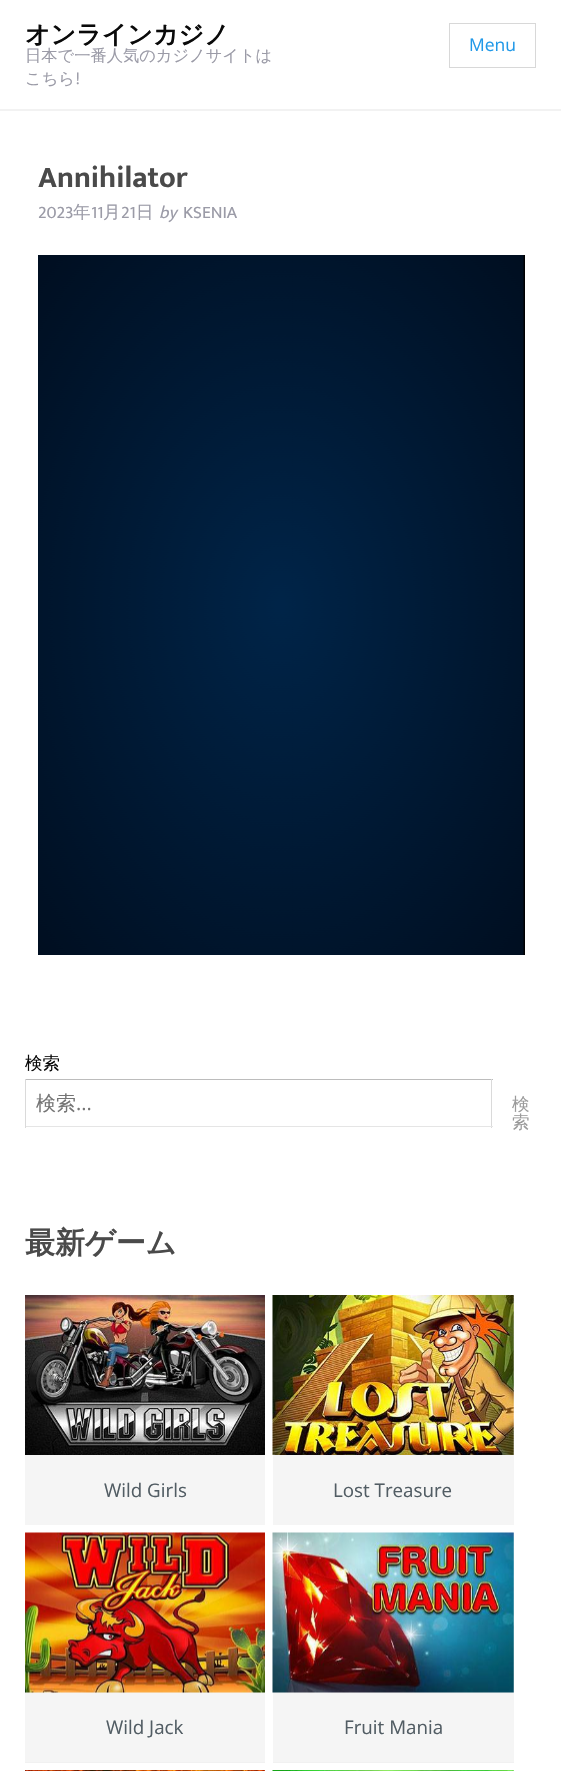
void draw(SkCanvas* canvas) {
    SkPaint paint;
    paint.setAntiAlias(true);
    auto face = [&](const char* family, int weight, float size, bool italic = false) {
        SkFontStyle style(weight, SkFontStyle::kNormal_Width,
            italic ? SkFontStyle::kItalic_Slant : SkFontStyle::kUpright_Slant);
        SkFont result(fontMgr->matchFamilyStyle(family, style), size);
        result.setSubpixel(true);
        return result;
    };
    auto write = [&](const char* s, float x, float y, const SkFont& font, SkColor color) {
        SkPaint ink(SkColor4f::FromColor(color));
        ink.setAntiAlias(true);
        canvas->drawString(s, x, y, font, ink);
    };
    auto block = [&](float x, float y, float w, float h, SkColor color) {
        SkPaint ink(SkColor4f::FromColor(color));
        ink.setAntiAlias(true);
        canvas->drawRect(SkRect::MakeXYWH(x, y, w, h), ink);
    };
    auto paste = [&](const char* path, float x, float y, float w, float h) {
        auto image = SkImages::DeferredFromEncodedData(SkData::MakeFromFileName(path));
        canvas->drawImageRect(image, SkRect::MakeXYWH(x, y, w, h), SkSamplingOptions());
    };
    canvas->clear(SK_ColorWHITE);
    block(0, 109, 561, 2, SkColorSetRGB(242, 242, 242));
    auto kFont1 = face("WenQuanYi Zen Hei", 700, 25);
    write("オンラインカジノ", 25, 43, kFont1, SkColorSetRGB(10, 10, 10));
    auto kFont2 = face("WenQuanYi Zen Hei", 500, 16.25f);
    write("日本で一番人気のカジノサイトは", 25, 61, kFont2, SkColorSetRGB(155, 155, 167));
    write("こちら", 25, 84, kFont2, SkColorSetRGB(155, 155, 167));
    auto kFont3 = face("PT Sans", 400, 16.25f);
    write("!", 75, 84, kFont3, SkColorSetRGB(155, 155, 167));
    paint.setStyle(SkPaint::kStroke_Style);
    paint.setStrokeWidth(1);
    paint.setColor(SkColorSetRGB(216, 216, 216));
    canvas->drawRect(SkRect::MakeXYWH(449.5f, 23.5f, 86, 44), paint);
    auto kFont4 = face("Open Sans", 400, 17.5f);
    write("Menu", 469, 51, kFont4, SkColorSetRGB(33, 153, 232));
    auto kFont5 = face("Ek Mukta", 700, 30);
    write("Annihilator", 38, 187, kFont5, SkColorSetRGB(74, 74, 74));
    auto kFont6 = face("Ek Mukta", 400, 17.5f);
    write("2023", 38, 218, kFont6, SkColorSetRGB(155, 155, 167));
    auto kFont7 = face("WenQuanYi Zen Hei", 500, 17.5f);
    write("年", 73, 218, kFont7, SkColorSetRGB(155, 155, 167));
    write("11", 91, 218, kFont6, SkColorSetRGB(155, 155, 167));
    write("月", 103, 218, kFont7, SkColorSetRGB(155, 155, 167));
    write("21", 121, 218, kFont6, SkColorSetRGB(155, 155, 167));
    write("日", 136, 218, kFont7, SkColorSetRGB(155, 155, 167));
    auto kFont8 = face("Ek Mukta", 400, 17.5f, true);
    write("by", 159, 218, kFont8, SkColorSetRGB(155, 155, 167));
    write("KSENIA", 183, 218, kFont6, SkColorSetRGB(155, 155, 167));
    paste("pic1.png", 38, 255, 487, 700);
    write("検索", 25, 1069, kFont7, SkColorSetRGB(10, 10, 10));
    block(25, 1079, 468, 1, SkColorSetRGB(188, 188, 188));
    block(491, 1079, 1, 49, SkColorSetRGB(218, 218, 218));
    block(25, 1126, 468, 1, SkColorSetRGB(229, 229, 229));
    block(25, 1079, 1, 49, SkColorSetRGB(218, 218, 218));
    auto kFont9 = face("WenQuanYi Zen Hei", 500, 20);
    write("検索", 36, 1110, kFont9, SkColorSetRGB(117, 117, 117));
    auto kFont10 = face("Open Sans", 400, 20);
    write("...", 76, 1110, kFont10, SkColorSetRGB(117, 117, 117));
    write("検", 512, 1110, kFont7, SkColorSetRGB(155, 155, 155));
    write("索", 512, 1128, kFont7, SkColorSetRGB(155, 155, 155));
    auto kFont11 = face("WenQuanYi Zen Hei", 700, 30);
    write("最新ゲーム", 25, 1253, kFont11, SkColorSetRGB(74, 74, 74));
    block(25, 1455, 240, 70, SkColorSetRGB(245, 245, 245));
    paste("pic2.png", 25, 1295, 240, 160);
    auto kFont12 = face("Open Sans", 400, 18.75f);
    write("Wild Girls", 104, 1497, kFont12, SkColorSetRGB(82, 93, 100));
    block(273, 1455, 241, 70, SkColorSetRGB(245, 245, 245));
    paste("pic3.png", 272, 1295, 242, 160);
    write("Lost Treasure", 333, 1497, kFont12, SkColorSetRGB(82, 93, 100));
    block(25, 1692, 240, 71, SkColorSetRGB(241, 241, 241));
    block(25, 1693, 240, 69, SkColorSetRGB(245, 245, 245));
    paste("pic4.png", 25, 1532, 240, 161);
    write("Wild Jack", 106, 1734, kFont12, SkColorSetRGB(82, 93, 100));
    block(273, 1533, 241, 230, SkColorSetRGB(241, 241, 241));
    block(273, 1693, 241, 69, SkColorSetRGB(245, 245, 245));
    paste("pic5.png", 272, 1532, 242, 161);
    write("Fruit Mania", 344, 1734, kFont12, SkColorSetRGB(82, 93, 100));
    paste("pic6.png", 25, 1770, 240, 1);
    paste("pic7.png", 272, 1770, 242, 1);
}
